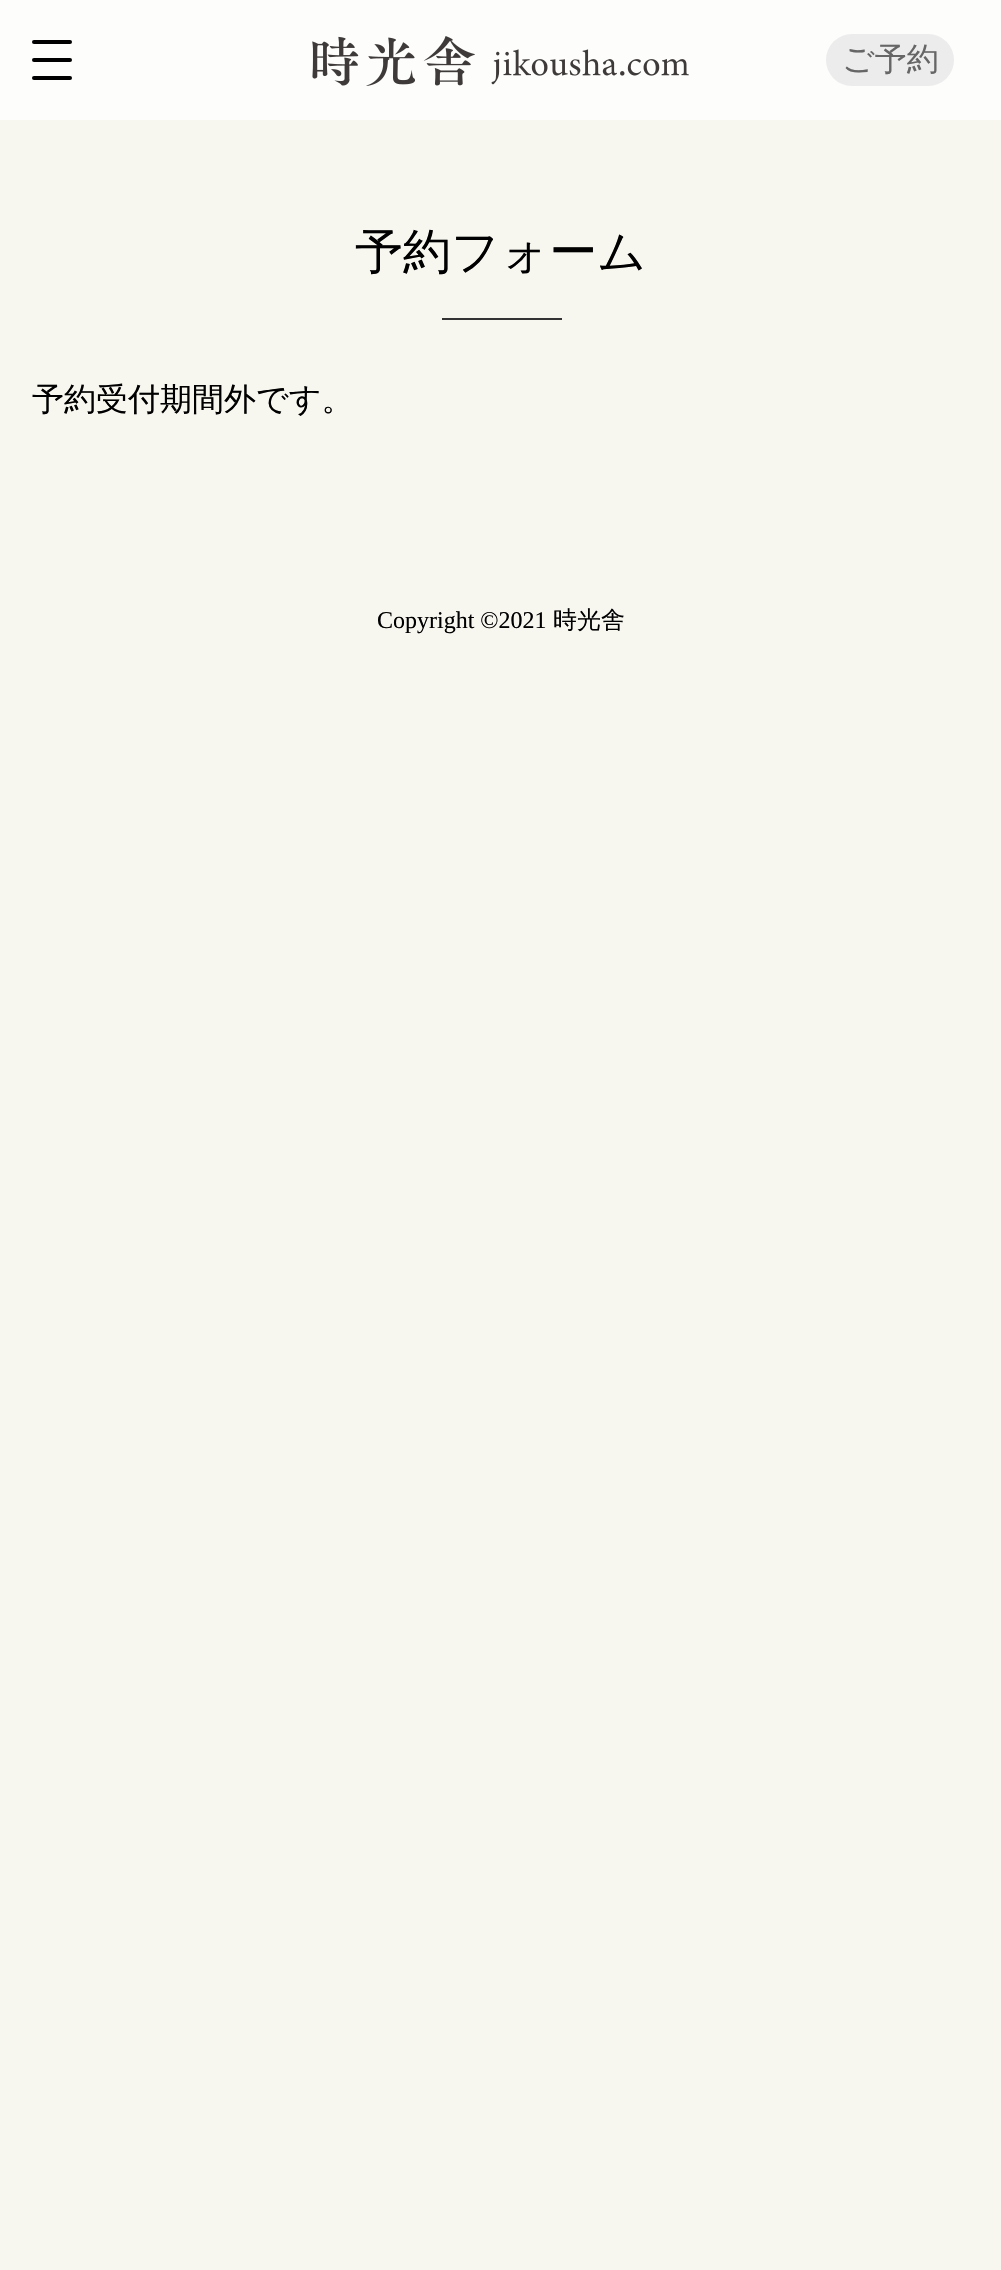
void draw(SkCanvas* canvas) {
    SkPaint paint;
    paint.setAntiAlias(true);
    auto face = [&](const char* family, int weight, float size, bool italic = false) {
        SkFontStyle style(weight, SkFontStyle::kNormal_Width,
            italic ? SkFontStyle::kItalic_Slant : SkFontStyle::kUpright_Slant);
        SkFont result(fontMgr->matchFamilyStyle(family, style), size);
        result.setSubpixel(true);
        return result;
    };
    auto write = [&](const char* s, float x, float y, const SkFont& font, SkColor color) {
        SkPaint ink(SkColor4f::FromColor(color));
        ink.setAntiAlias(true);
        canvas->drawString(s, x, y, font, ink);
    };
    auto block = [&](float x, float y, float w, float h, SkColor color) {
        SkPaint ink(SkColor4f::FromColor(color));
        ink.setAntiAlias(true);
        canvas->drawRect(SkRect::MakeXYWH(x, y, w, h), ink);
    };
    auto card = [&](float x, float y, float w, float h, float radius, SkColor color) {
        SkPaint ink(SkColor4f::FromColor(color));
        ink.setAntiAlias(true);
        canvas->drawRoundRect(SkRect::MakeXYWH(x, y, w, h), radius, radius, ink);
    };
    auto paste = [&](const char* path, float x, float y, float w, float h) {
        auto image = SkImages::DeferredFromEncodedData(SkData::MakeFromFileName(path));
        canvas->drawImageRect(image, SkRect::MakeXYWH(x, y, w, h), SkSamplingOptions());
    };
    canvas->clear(SkColorSetRGB(247, 246, 239));
    block(0, 0, 1001, 120, SkColorSetRGB(253, 253, 252));
    card(32, 40, 40, 4, 2, SK_ColorBLACK);
    card(32, 58, 40, 4, 2, SK_ColorBLACK);
    card(32, 76, 40, 4, 2, SK_ColorBLACK);
    paste("pic1.png", 312, 36, 377, 50);
    card(826, 34, 128, 52, 26, SkColorSetRGB(237, 236, 236));
    auto kFont1 = face("WenQuanYi Zen Hei", 500, 32);
    write("ご予約", 842, 70, kFont1, SkColorSetRGB(102, 102, 102));
    auto kFont2 = face("WenQuanYi Zen Hei", 500, 48);
    write("予約フォーム", 355, 268, kFont2, SK_ColorBLACK);
    block(442, 318, 120, 2, SkColorSetRGB(51, 51, 51));
    write("予約受付期間外です。", 32, 410, kFont1, SK_ColorBLACK);
    auto kFont3 = face("Liberation Serif", 400, 24);
    write("Copyright ©2021", 377, 628, kFont3, SK_ColorBLACK);
    auto kFont4 = face("WenQuanYi Zen Hei", 500, 24);
    write("時光舎", 553, 628, kFont4, SK_ColorBLACK);
}
